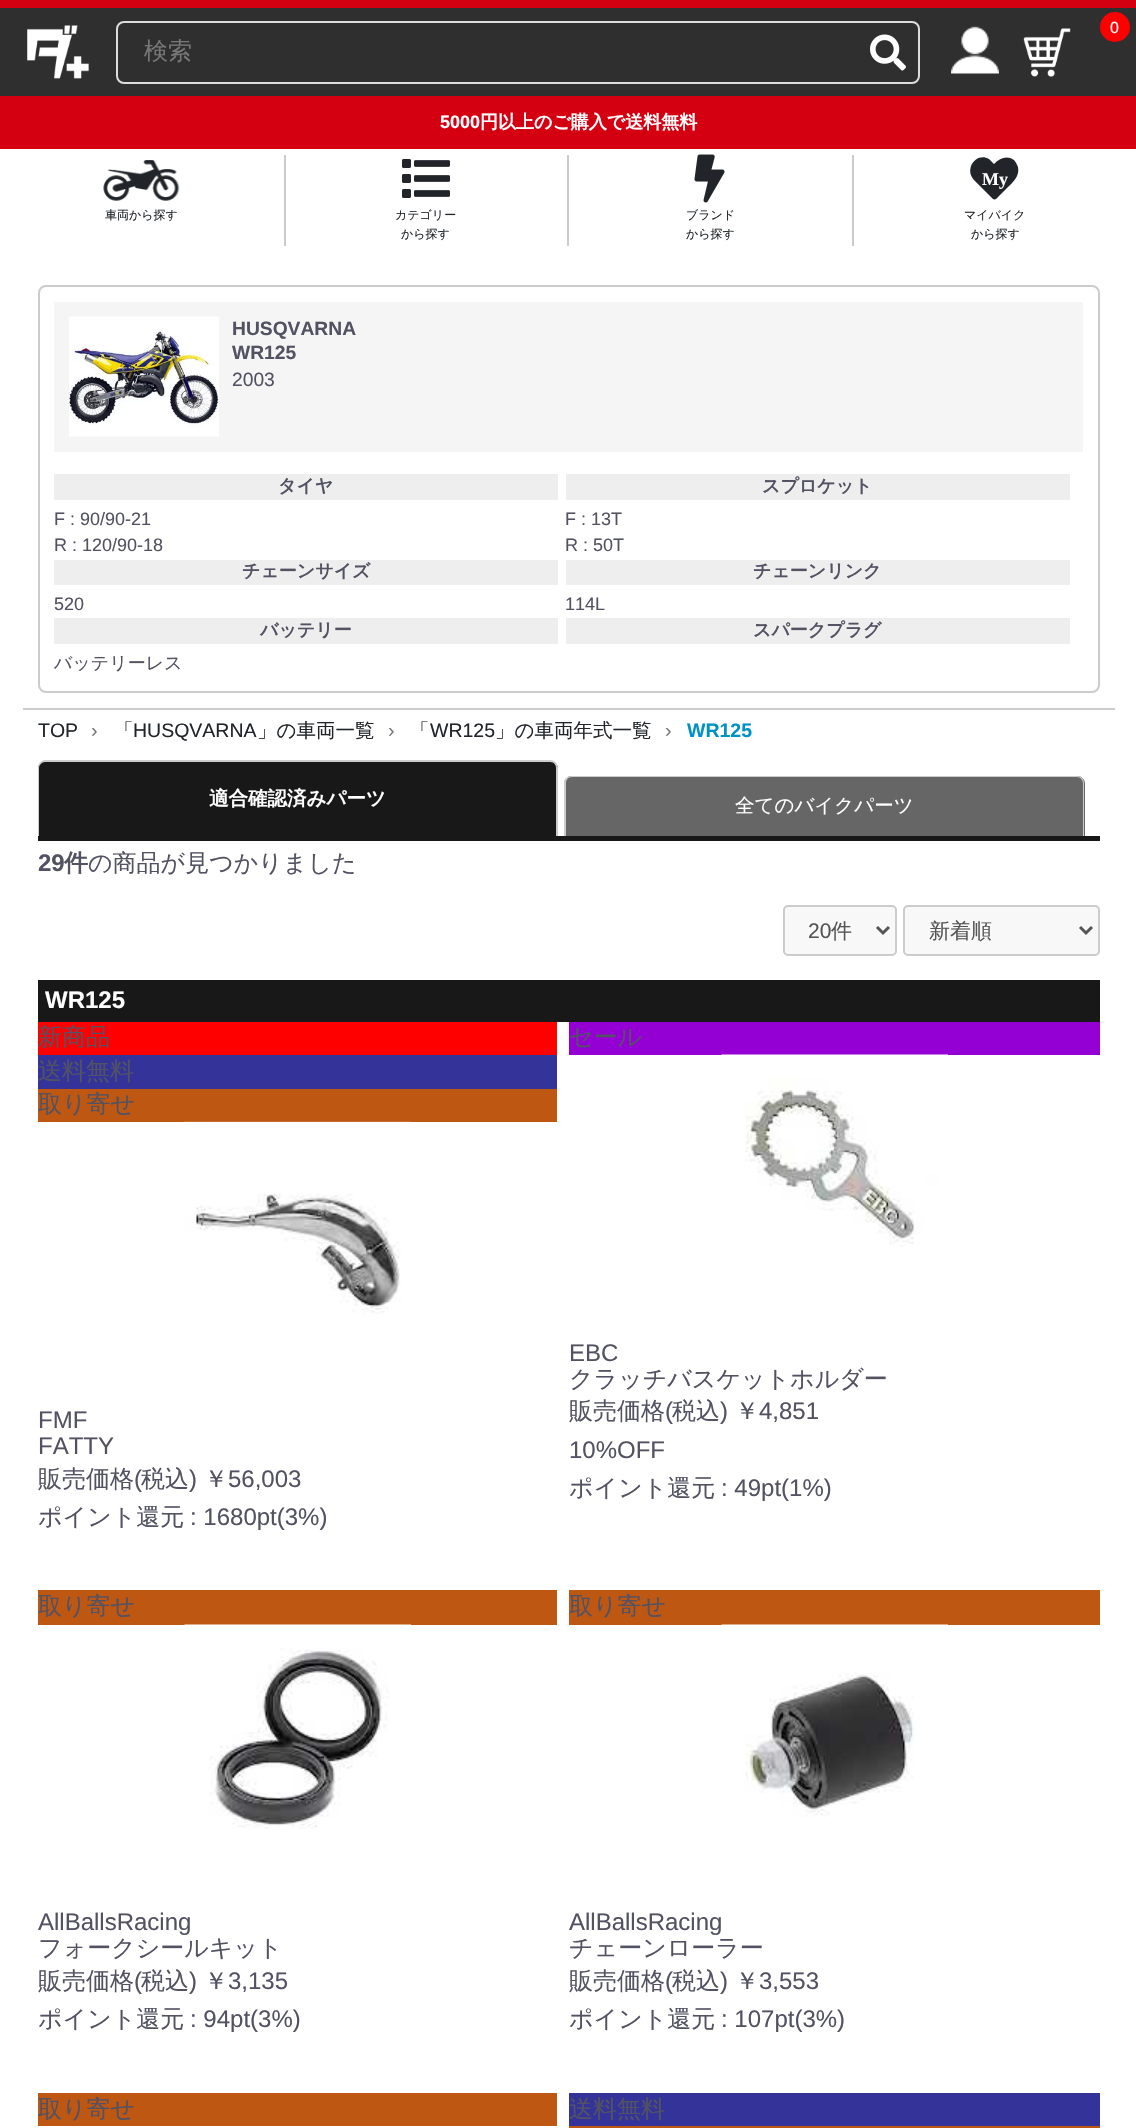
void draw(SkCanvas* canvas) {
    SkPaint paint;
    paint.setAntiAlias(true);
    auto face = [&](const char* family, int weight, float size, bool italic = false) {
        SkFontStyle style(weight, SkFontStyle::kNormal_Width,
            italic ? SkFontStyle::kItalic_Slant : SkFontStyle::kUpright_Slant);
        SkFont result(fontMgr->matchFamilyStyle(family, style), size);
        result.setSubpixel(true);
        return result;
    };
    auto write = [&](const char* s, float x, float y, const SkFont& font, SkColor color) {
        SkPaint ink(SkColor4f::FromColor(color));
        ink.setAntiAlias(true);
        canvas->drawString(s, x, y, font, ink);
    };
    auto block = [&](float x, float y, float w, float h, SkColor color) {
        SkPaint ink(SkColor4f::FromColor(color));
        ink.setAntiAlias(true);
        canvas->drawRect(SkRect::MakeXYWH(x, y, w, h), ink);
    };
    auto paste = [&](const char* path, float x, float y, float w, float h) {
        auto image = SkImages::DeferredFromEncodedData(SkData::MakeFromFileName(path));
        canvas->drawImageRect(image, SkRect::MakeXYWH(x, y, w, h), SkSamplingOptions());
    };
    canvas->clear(SK_ColorWHITE);
    block(0, 8, 1136, 88, SkColorSetRGB(47, 47, 47));
    block(0, 0, 1136, 8, SkColorSetRGB(212, 0, 18));
    paste("pic1.png", 27, 25, 62, 54);
    paint.setStyle(SkPaint::kStroke_Style);
    paint.setStrokeWidth(2);
    paint.setColor(SkColorSetRGB(221, 221, 221));
    canvas->drawRoundRect(SkRect::MakeXYWH(117, 22, 802, 61), 7, 7, paint);
    auto kFont1 = face("WenQuanYi Zen Hei", 500, 24);
    write("検索", 144, 59, kFont1, SkColorSetRGB(119, 119, 119));
    paste("pic2.png", 870, 34, 36, 37);
    paste("pic3.png", 951, 26, 48, 48);
    paste("pic4.png", 1023, 28, 48, 49);
    paint.setStyle(SkPaint::kFill_Style);
    paint.setColor(SkColorSetRGB(255, 0, 0));
    canvas->drawCircle(1115, 27, 15, paint);
    auto kFont2 = face("Liberation Sans", 400, 16);
    write("0", 1110, 33, kFont2, SK_ColorWHITE);
    block(0, 96, 1136, 53, SkColorSetRGB(212, 0, 18));
    auto kFont3 = face("Liberation Sans", 700, 18);
    write("5000", 440, 128, kFont3, SK_ColorWHITE);
    auto kFont4 = face("WenQuanYi Zen Hei", 700, 18);
    write("円以上のご購入で送料無料", 480, 128, kFont4, SK_ColorWHITE);
    block(284, 155, 2, 91, SkColorSetRGB(204, 204, 204));
    paste("pic5.png", 103, 160, 77, 41);
    auto kFont5 = face("WenQuanYi Zen Hei", 500, 12);
    write("車両から探す", 105, 219, kFont5, SkColorSetRGB(33, 37, 41));
    block(567, 155, 2, 91, SkColorSetRGB(204, 204, 204));
    paste("pic6.png", 402, 159, 48, 39);
    write("カテゴリー", 395, 219, kFont5, SkColorSetRGB(33, 37, 41));
    write("から探す", 401, 238, kFont5, SkColorSetRGB(33, 37, 41));
    block(852, 155, 2, 91, SkColorSetRGB(204, 204, 204));
    paste("pic7.png", 694, 154, 31, 49);
    write("ブランド", 686, 219, kFont5, SkColorSetRGB(33, 37, 41));
    write("から探す", 686, 238, kFont5, SkColorSetRGB(33, 37, 41));
    paint.setColor(SkColorSetRGB(33, 37, 41));
    canvas->drawPath(SkPathBuilder().moveTo(1014, 160).cubicTo(1007, 155, 1000, 158, 994, 164).lineTo(989, 159).cubicTo(976, 152, 964, 169, 974, 180).lineTo(989, 195).cubicTo(995, 201, 994, 201, 1000, 195).lineTo(1006, 189).cubicTo(1012, 183, 1020, 177, 1018, 167).cubicTo(1017, 165, 1016, 162, 1014, 160).close().detach(), paint);
    auto kFont6 = face("Liberation Serif", 700, 18);
    write("My", 982, 185, kFont6, SK_ColorWHITE);
    write("マイバイク", 964, 219, kFont5, SkColorSetRGB(33, 37, 41));
    write("から探す", 971, 238, kFont5, SkColorSetRGB(33, 37, 41));
    paint.setStyle(SkPaint::kStroke_Style);
    paint.setColor(SkColorSetRGB(204, 204, 204));
    canvas->drawRoundRect(SkRect::MakeXYWH(39, 286, 1060, 406), 7, 7, paint);
    block(54, 302, 1029, 150, SkColorSetRGB(245, 245, 245));
    paste("pic8.png", 69, 316, 150, 121);
    auto kFont7 = face("Liberation Sans", 700, 19.25f);
    write("HUSQVARNA", 232, 335, kFont7, SkColorSetRGB(82, 82, 99));
    write("WR125", 232, 359, kFont7, SkColorSetRGB(82, 82, 99));
    auto kFont8 = face("Liberation Sans", 400, 19.25f);
    write("2003", 232, 386, kFont8, SkColorSetRGB(82, 82, 99));
    block(54, 474, 504, 26, SkColorSetRGB(238, 238, 238));
    write("タイヤ", 278, 492, kFont4, SkColorSetRGB(82, 82, 99));
    auto kFont9 = face("Liberation Sans", 400, 18);
    write("F : 90/90-21", 54, 525, kFont9, SkColorSetRGB(82, 82, 99));
    write("R : 120/90-18", 54, 551, kFont9, SkColorSetRGB(82, 82, 99));
    block(566, 474, 504, 26, SkColorSetRGB(238, 238, 238));
    write("スプロケット", 762, 492, kFont4, SkColorSetRGB(82, 82, 99));
    write("F : 13T", 565, 525, kFont9, SkColorSetRGB(82, 82, 99));
    write("R : 50T", 565, 551, kFont9, SkColorSetRGB(82, 82, 99));
    block(54, 560, 504, 25, SkColorSetRGB(238, 238, 238));
    write("チェーンサイズ", 242, 577, kFont4, SkColorSetRGB(82, 82, 99));
    write("520", 54, 610, kFont9, SkColorSetRGB(82, 82, 99));
    block(566, 560, 504, 25, SkColorSetRGB(238, 238, 238));
    write("チェーンリンク", 753, 577, kFont4, SkColorSetRGB(82, 82, 99));
    write("114L", 565, 610, kFont9, SkColorSetRGB(82, 82, 99));
    block(54, 618, 504, 26, SkColorSetRGB(238, 238, 238));
    write("バッテリー", 260, 636, kFont4, SkColorSetRGB(82, 82, 99));
    auto kFont10 = face("WenQuanYi Zen Hei", 500, 18);
    write("バッテリーレス", 54, 669, kFont10, SkColorSetRGB(82, 82, 99));
    block(566, 618, 504, 26, SkColorSetRGB(238, 238, 238));
    write("スパークプラグ", 753, 636, kFont4, SkColorSetRGB(82, 82, 99));
    block(23, 708, 1092, 2, SkColorSetRGB(204, 204, 204));
    auto kFont11 = face("Liberation Sans", 400, 19.5f);
    write("TOP", 38, 737, kFont11, SkColorSetRGB(33, 37, 41));
    write("›", 91, 737, kFont11, SkColorSetRGB(119, 119, 119));
    auto kFont12 = face("WenQuanYi Zen Hei", 500, 19.5f);
    write("「", 114, 737, kFont12, SkColorSetRGB(33, 37, 41));
    write("HUSQVARNA", 133, 737, kFont11, SkColorSetRGB(33, 37, 41));
    write("」の車両一覧", 257, 737, kFont12, SkColorSetRGB(33, 37, 41));
    write("›", 388, 737, kFont11, SkColorSetRGB(119, 119, 119));
    write("「", 410, 737, kFont12, SkColorSetRGB(33, 37, 41));
    write("WR125", 430, 737, kFont11, SkColorSetRGB(33, 37, 41));
    write("」の車両年式一覧", 495, 737, kFont12, SkColorSetRGB(33, 37, 41));
    write("›", 665, 737, kFont11, SkColorSetRGB(119, 119, 119));
    auto kFont13 = face("Liberation Sans", 700, 19.5f);
    write("WR125", 687, 737, kFont13, SkColorSetRGB(0, 146, 196));
    block(38, 836, 1062, 5, SkColorSetRGB(24, 24, 24));
    paint.setStyle(SkPaint::kFill_Style);
    paint.setColor(SkColorSetRGB(24, 24, 24));
    canvas->drawPath(SkPathBuilder().moveTo(46, 761).lineTo(550, 761).cubicTo(554.5f, 761, 558, 764.5f, 558, 769).lineTo(558, 836).lineTo(38, 836).lineTo(38, 769).cubicTo(38, 764.5f, 41.5f, 761, 46, 761).close().detach(), paint);
    paint.setColor(SkColorSetRGB(204, 204, 204));
    canvas->drawPath(SkPathBuilder(SkPathFillType::kEvenOdd).moveTo(45, 760).lineTo(550, 760).cubicTo(555, 760, 558, 764, 558, 768).lineTo(558, 836).lineTo(38, 836).lineTo(38, 768).cubicTo(38, 764, 41, 760, 45, 760).close().moveTo(45, 762).lineTo(550, 762).cubicTo(554, 762, 556, 765, 556, 768).lineTo(556, 836).lineTo(39, 836).lineTo(39, 768).cubicTo(39, 765, 42, 762, 45, 762).close().detach(), paint);
    auto kFont14 = face("WenQuanYi Zen Hei", 700, 19.5f);
    write("適合確認済みパーツ", 209, 805, kFont14, SK_ColorWHITE);
    paint.setColor(SkColorSetRGB(102, 102, 102));
    canvas->drawPath(SkPathBuilder().moveTo(572, 776).lineTo(1077, 776).cubicTo(1081.5f, 776, 1085, 779.5f, 1085, 784).lineTo(1085, 836).lineTo(564, 836).lineTo(564, 784).cubicTo(564, 779.5f, 567.5f, 776, 572, 776).close().detach(), paint);
    paint.setColor(SkColorSetRGB(204, 204, 204));
    canvas->drawPath(SkPathBuilder(SkPathFillType::kEvenOdd).moveTo(572, 776).lineTo(1077, 776).cubicTo(1081, 776, 1084, 779, 1084, 783).lineTo(1084, 836).lineTo(564, 836).lineTo(564, 783).cubicTo(564, 779, 567, 776, 572, 776).close().moveTo(572, 777).lineTo(1077, 777).cubicTo(1080, 777, 1083, 780, 1083, 783).lineTo(1083, 836).lineTo(566, 836).lineTo(566, 783).cubicTo(566, 780, 568, 777, 572, 777).close().detach(), paint);
    write("全てのバイクパーツ", 735, 812, kFont12, SK_ColorWHITE);
    auto kFont15 = face("Liberation Sans", 700, 24);
    write("29", 38, 871, kFont15, SkColorSetRGB(82, 82, 99));
    auto kFont16 = face("WenQuanYi Zen Hei", 700, 24);
    write("件", 64, 871, kFont16, SkColorSetRGB(82, 82, 99));
    write("の商品が見つかりました", 88, 871, kFont1, SkColorSetRGB(82, 82, 99));
    paint.setColor(SkColorSetRGB(248, 248, 248));
    canvas->drawRoundRect(SkRect::MakeXYWH(784, 906, 112, 49), 4, 4, paint);
    paint.setStyle(SkPaint::kStroke_Style);
    paint.setColor(SkColorSetRGB(204, 204, 204));
    canvas->drawRoundRect(SkRect::MakeXYWH(784, 906, 112, 49), 4, 4, paint);
    paint.setStrokeWidth(3);
    paint.setColor(SkColorSetRGB(85, 85, 85));
    canvas->drawPath(SkPathBuilder().moveTo(877, 927).lineTo(883, 933).lineTo(889, 927).detach(), paint);
    auto kFont17 = face("Liberation Sans", 400, 21);
    write("20", 808, 938, kFont17, SkColorSetRGB(85, 85, 85));
    auto kFont18 = face("WenQuanYi Zen Hei", 500, 21);
    write("件", 831, 938, kFont18, SkColorSetRGB(85, 85, 85));
    paint.setStyle(SkPaint::kFill_Style);
    paint.setColor(SkColorSetRGB(248, 248, 248));
    canvas->drawRoundRect(SkRect::MakeXYWH(904, 906, 195, 49), 4, 4, paint);
    paint.setStyle(SkPaint::kStroke_Style);
    paint.setStrokeWidth(2);
    paint.setColor(SkColorSetRGB(204, 204, 204));
    canvas->drawRoundRect(SkRect::MakeXYWH(904, 906, 195, 49), 4, 4, paint);
    paint.setStrokeWidth(3);
    paint.setColor(SkColorSetRGB(85, 85, 85));
    canvas->drawPath(SkPathBuilder().moveTo(1080, 927).lineTo(1086, 933).lineTo(1092, 927).detach(), paint);
    write("新着順", 929, 938, kFont18, SkColorSetRGB(85, 85, 85));
    block(38, 980, 1062, 42, SkColorSetRGB(24, 24, 24));
    write("WR125", 45, 1008, kFont15, SK_ColorWHITE);
    block(38, 1022, 519, 33, SkColorSetRGB(255, 0, 0));
    write("新商品", 38, 1045, kFont1, SkColorSetRGB(82, 82, 99));
    block(38, 1055, 519, 34, SkColorSetRGB(51, 51, 153));
    write("送料無料", 38, 1079, kFont1, SkColorSetRGB(82, 82, 99));
    block(38, 1089, 519, 33, SkColorSetRGB(190, 87, 18));
    write("取り寄せ", 38, 1112, kFont1, SkColorSetRGB(82, 82, 99));
    paste("pic9.png", 184, 1121, 227, 193);
    auto kFont19 = face("Liberation Sans", 400, 24);
    write("FMF", 38, 1428, kFont19, SkColorSetRGB(82, 82, 99));
    write("FATTY", 38, 1454, kFont19, SkColorSetRGB(82, 82, 99));
    write("販売価格", 38, 1487, kFont1, SkColorSetRGB(82, 82, 99));
    write("(", 134, 1487, kFont19, SkColorSetRGB(82, 82, 99));
    write("税込", 141, 1487, kFont1, SkColorSetRGB(82, 82, 99));
    write(")", 189, 1487, kFont19, SkColorSetRGB(82, 82, 99));
    write("￥", 204, 1487, kFont1, SkColorSetRGB(82, 82, 99));
    write("56,003", 228, 1487, kFont19, SkColorSetRGB(82, 82, 99));
    write("ポイント還元", 38, 1525, kFont1, SkColorSetRGB(82, 82, 99));
    write(": 1680pt(3%)", 190, 1525, kFont19, SkColorSetRGB(82, 82, 99));
    block(569, 1022, 531, 33, SkColorSetRGB(148, 0, 211));
    write("セール", 569, 1045, kFont1, SkColorSetRGB(82, 82, 99));
    paste("pic10.png", 721, 1054, 227, 193);
    write("EBC", 569, 1361, kFont19, SkColorSetRGB(82, 82, 99));
    write("クラッチバスケットホルダー", 569, 1387, kFont1, SkColorSetRGB(82, 82, 99));
    write("販売価格", 569, 1419, kFont1, SkColorSetRGB(82, 82, 99));
    write("(", 665, 1419, kFont19, SkColorSetRGB(82, 82, 99));
    write("税込", 672, 1419, kFont1, SkColorSetRGB(82, 82, 99));
    write(")", 720, 1419, kFont19, SkColorSetRGB(82, 82, 99));
    write("￥", 735, 1419, kFont1, SkColorSetRGB(82, 82, 99));
    write("4,851", 759, 1419, kFont19, SkColorSetRGB(82, 82, 99));
    write("10%OFF", 569, 1458, kFont19, SkColorSetRGB(82, 82, 99));
    write("ポイント還元", 569, 1496, kFont1, SkColorSetRGB(82, 82, 99));
    write(": 49pt(1%)", 721, 1496, kFont19, SkColorSetRGB(82, 82, 99));
    block(38, 1590, 519, 35, SkColorSetRGB(190, 87, 18));
    write("取り寄せ", 38, 1614, kFont1, SkColorSetRGB(82, 82, 99));
    paste("pic11.png", 184, 1624, 227, 205);
    write("AllBallsRacing", 38, 1930, kFont19, SkColorSetRGB(82, 82, 99));
    write("フォークシールキット", 38, 1956, kFont1, SkColorSetRGB(82, 82, 99));
    write("販売価格", 38, 1989, kFont1, SkColorSetRGB(82, 82, 99));
    write("(", 134, 1989, kFont19, SkColorSetRGB(82, 82, 99));
    write("税込", 141, 1989, kFont1, SkColorSetRGB(82, 82, 99));
    write(")", 189, 1989, kFont19, SkColorSetRGB(82, 82, 99));
    write("￥", 204, 1989, kFont1, SkColorSetRGB(82, 82, 99));
    write("3,135", 228, 1989, kFont19, SkColorSetRGB(82, 82, 99));
    write("ポイント還元", 38, 2027, kFont1, SkColorSetRGB(82, 82, 99));
    write(": 94pt(3%)", 190, 2027, kFont19, SkColorSetRGB(82, 82, 99));
    block(569, 1590, 531, 35, SkColorSetRGB(190, 87, 18));
    write("取り寄せ", 569, 1614, kFont1, SkColorSetRGB(82, 82, 99));
    paste("pic12.png", 721, 1624, 227, 193);
    write("AllBallsRacing", 569, 1930, kFont19, SkColorSetRGB(82, 82, 99));
    write("チェーンローラー", 569, 1956, kFont1, SkColorSetRGB(82, 82, 99));
    write("販売価格", 569, 1989, kFont1, SkColorSetRGB(82, 82, 99));
    write("(", 665, 1989, kFont19, SkColorSetRGB(82, 82, 99));
    write("税込", 672, 1989, kFont1, SkColorSetRGB(82, 82, 99));
    write(")", 720, 1989, kFont19, SkColorSetRGB(82, 82, 99));
    write("￥", 735, 1989, kFont1, SkColorSetRGB(82, 82, 99));
    write("3,553", 759, 1989, kFont19, SkColorSetRGB(82, 82, 99));
    write("ポイント還元", 569, 2027, kFont1, SkColorSetRGB(82, 82, 99));
    write(": 107pt(3%)", 721, 2027, kFont19, SkColorSetRGB(82, 82, 99));
    block(38, 2093, 519, 33, SkColorSetRGB(190, 87, 18));
    write("取り寄せ", 38, 2117, kFont1, SkColorSetRGB(82, 82, 99));
    block(569, 2093, 531, 33, SkColorSetRGB(51, 51, 153));
    write("送料無料", 569, 2117, kFont1, SkColorSetRGB(82, 82, 99));
    block(569, 2126, 531, 2, SkColorSetRGB(190, 87, 18));
}
